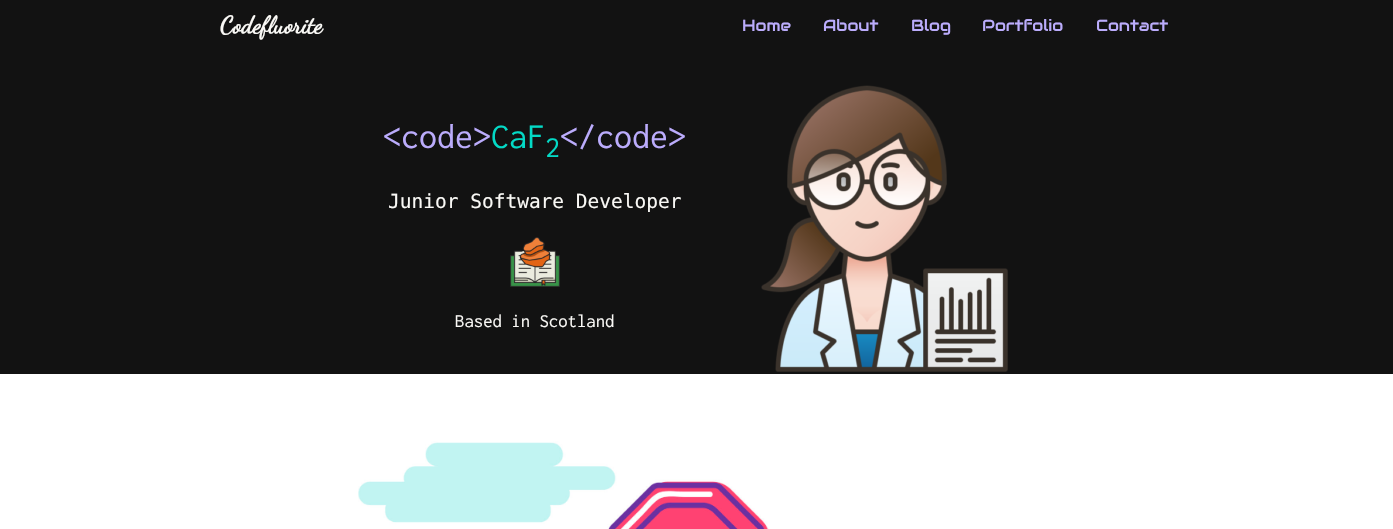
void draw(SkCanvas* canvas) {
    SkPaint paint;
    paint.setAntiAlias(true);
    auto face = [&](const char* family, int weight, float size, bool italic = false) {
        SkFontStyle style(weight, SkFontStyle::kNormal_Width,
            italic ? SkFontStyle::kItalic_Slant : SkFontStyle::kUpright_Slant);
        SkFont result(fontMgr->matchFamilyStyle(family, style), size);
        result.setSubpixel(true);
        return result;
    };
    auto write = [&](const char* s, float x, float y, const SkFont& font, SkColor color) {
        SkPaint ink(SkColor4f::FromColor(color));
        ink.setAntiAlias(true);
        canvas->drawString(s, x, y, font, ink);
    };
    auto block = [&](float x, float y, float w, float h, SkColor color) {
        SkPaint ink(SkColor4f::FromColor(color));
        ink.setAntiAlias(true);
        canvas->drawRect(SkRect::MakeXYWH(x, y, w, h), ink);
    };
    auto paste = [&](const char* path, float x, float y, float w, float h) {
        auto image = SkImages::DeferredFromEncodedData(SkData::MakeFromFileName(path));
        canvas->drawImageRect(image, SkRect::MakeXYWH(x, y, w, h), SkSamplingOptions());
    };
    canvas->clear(SK_ColorWHITE);
    block(0, 0, 1393, 374, SkColorSetRGB(18, 18, 18));
    auto kFont1 = face("Dancing Script", 700, 24);
    write("Codefluorite", 220, 33, kFont1, SkColorSetRGB(250, 249, 246));
    auto kFont2 = face("Audiowide", 400, 16);
    write("Home", 742, 31, kFont2, SkColorSetRGB(187, 172, 252));
    write("About", 823, 31, kFont2, SkColorSetRGB(187, 172, 252));
    write("Blog", 911, 31, kFont2, SkColorSetRGB(187, 172, 252));
    write("Portfolio", 982, 31, kFont2, SkColorSetRGB(187, 172, 252));
    write("Contact", 1096, 31, kFont2, SkColorSetRGB(187, 172, 252));
    auto kFont3 = face("Inconsolata", 400, 36);
    write("<code>", 383, 148, kFont3, SkColorSetRGB(187, 172, 252));
    write("CaF", 491, 148, kFont3, SkColorSetRGB(3, 218, 198));
    auto kFont4 = face("Inconsolata", 400, 30);
    write("2", 545, 157, kFont4, SkColorSetRGB(3, 218, 198));
    write("</code>", 560, 148, kFont3, SkColorSetRGB(187, 172, 252));
    auto kFont5 = face("DejaVu Sans Mono", 400, 19.5f);
    write("Junior Software Developer", 388, 208, kFont5, SkColorSetRGB(250, 249, 246));
    paste("pic1.png", 510, 237, 50, 50);
    auto kFont6 = face("Inconsolata", 400, 18.75f);
    write("Based in Scotland", 455, 327, kFont6, SkColorSetRGB(250, 249, 246));
    paste("pic2.png", 761, 85, 247, 287);
    paste("pic3.png", 358, 441, 411, 88);
}
